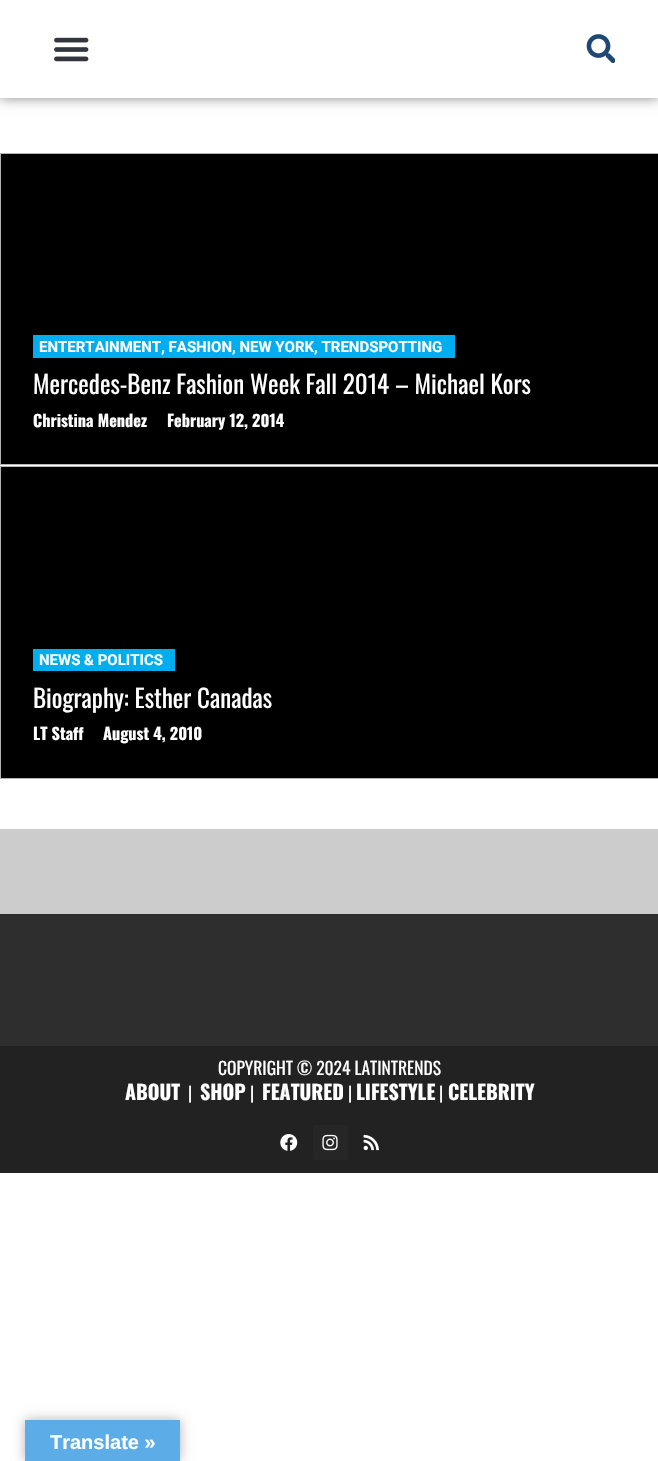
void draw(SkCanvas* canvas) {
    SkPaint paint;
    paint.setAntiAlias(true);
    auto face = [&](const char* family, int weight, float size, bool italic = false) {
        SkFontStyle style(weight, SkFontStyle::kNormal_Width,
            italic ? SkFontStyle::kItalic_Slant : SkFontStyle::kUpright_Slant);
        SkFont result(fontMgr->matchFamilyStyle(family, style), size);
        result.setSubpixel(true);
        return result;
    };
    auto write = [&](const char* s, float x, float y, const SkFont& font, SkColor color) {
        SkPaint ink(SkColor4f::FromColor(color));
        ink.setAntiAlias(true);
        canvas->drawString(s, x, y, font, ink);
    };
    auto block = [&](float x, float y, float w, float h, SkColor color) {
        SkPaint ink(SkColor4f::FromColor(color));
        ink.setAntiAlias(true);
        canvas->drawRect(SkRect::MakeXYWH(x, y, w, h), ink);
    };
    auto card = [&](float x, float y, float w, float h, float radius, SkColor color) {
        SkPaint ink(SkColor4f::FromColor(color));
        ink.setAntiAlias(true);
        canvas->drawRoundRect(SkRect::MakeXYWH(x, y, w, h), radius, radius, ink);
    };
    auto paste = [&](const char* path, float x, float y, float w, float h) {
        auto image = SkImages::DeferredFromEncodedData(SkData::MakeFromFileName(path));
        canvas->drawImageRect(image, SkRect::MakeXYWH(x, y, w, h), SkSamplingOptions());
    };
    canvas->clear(SK_ColorWHITE);
    paint.setColor(SkColorSetARGB(120, 0, 0, 0));
    paint.setMaskFilter(SkMaskFilter::MakeBlur(kNormal_SkBlurStyle, 6));
    canvas->drawRect(SkRect::MakeXYWH(0, 0, 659, 98), paint);
    paint.setMaskFilter(nullptr);
    block(0, 0, 658, 98, SK_ColorWHITE);
    paste("pic1.png", 54, 37, 35, 25);
    paste("pic2.png", 586, 34, 29, 29);
    paint.setColor(SK_ColorBLACK);
    canvas->drawRect(SkRect::MakeXYWH(0.5f, 153.5f, 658, 311), paint);
    paint.setStyle(SkPaint::kStroke_Style);
    paint.setStrokeWidth(1);
    paint.setColor(SkColorSetRGB(179, 179, 179));
    canvas->drawRect(SkRect::MakeXYWH(0.5f, 153.5f, 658, 311), paint);
    block(33, 335, 422, 23, SkColorSetRGB(0, 174, 239));
    auto kFont1 = face("Roboto", 700, 15);
    write("ENTERTAINMENT, FASHION, NEW YORK, TRENDSPOTTING", 39, 352, kFont1, SK_ColorWHITE);
    auto kFont2 = face("Oswald", 400, 25);
    write("Mercedes-Benz Fashion Week Fall 2014 – Michael Kors", 33, 394, kFont2, SK_ColorWHITE);
    auto kFont3 = face("Oswald", 700, 16.25f);
    write("Christina Mendez", 33, 427, kFont3, SK_ColorWHITE);
    write("February 12, 2014", 167, 427, kFont3, SK_ColorWHITE);
    paint.setStyle(SkPaint::kFill_Style);
    paint.setColor(SK_ColorBLACK);
    canvas->drawRect(SkRect::MakeXYWH(0.5f, 466.5f, 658, 312), paint);
    paint.setStyle(SkPaint::kStroke_Style);
    paint.setColor(SkColorSetRGB(179, 179, 179));
    canvas->drawRect(SkRect::MakeXYWH(0.5f, 466.5f, 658, 312), paint);
    block(33, 649, 142, 22, SkColorSetRGB(0, 174, 239));
    write("NEWS & POLITICS", 39, 665, kFont1, SK_ColorWHITE);
    write("Biography: Esther Canadas", 33, 708, kFont2, SK_ColorWHITE);
    write("LT Staff", 33, 740, kFont3, SK_ColorWHITE);
    write("August 4, 2010", 103, 740, kFont3, SK_ColorWHITE);
    block(0, 829, 658, 85, SkColorSetRGB(204, 204, 204));
    block(0, 914, 658, 132, SkColorSetRGB(46, 46, 46));
    block(0, 1046, 658, 127, SkColorSetRGB(34, 34, 34));
    auto kFont4 = face("Oswald", 400, 17.5f);
    write("COPYRIGHT © 2024 LATINTRENDS", 218, 1075, kFont4, SK_ColorWHITE);
    auto kFont5 = face("Oswald", 700, 20);
    write("ABOUT", 125, 1100, kFont5, SK_ColorWHITE);
    write("|", 188, 1100, kFont4, SK_ColorWHITE);
    write("SHOP", 200, 1100, kFont5, SK_ColorWHITE);
    write("|", 250, 1100, kFont4, SK_ColorWHITE);
    write("FEATURED", 262, 1100, kFont5, SK_ColorWHITE);
    write("|", 348, 1100, kFont4, SK_ColorWHITE);
    write("LIFESTYLE", 356, 1100, kFont5, SK_ColorWHITE);
    write("|", 439, 1100, kFont4, SK_ColorWHITE);
    write("CELEBRITY", 448, 1100, kFont5, SK_ColorWHITE);
    paste("pic3.png", 280, 1134, 18, 17);
    card(313, 1125, 35, 35, 4, SkColorSetRGB(38, 38, 38));
    paste("pic4.png", 322, 1134, 16, 17);
    paste("pic5.png", 363, 1134, 16, 17);
    paint.setStyle(SkPaint::kFill_Style);
    paint.setColor(SkColorSetARGB(77, 0, 0, 0));
    paint.setMaskFilter(SkMaskFilter::MakeBlur(kNormal_SkBlurStyle, 5.5f));
    canvas->drawRect(SkRect::MakeXYWH(25, 1420, 155, 41), paint);
    paint.setMaskFilter(nullptr);
    block(25, 1420, 155, 41, SkColorSetRGB(92, 172, 231));
    auto kFont6 = face("Liberation Sans", 700, 20);
    write("Translate »", 50, 1449, kFont6, SK_ColorWHITE);
}
